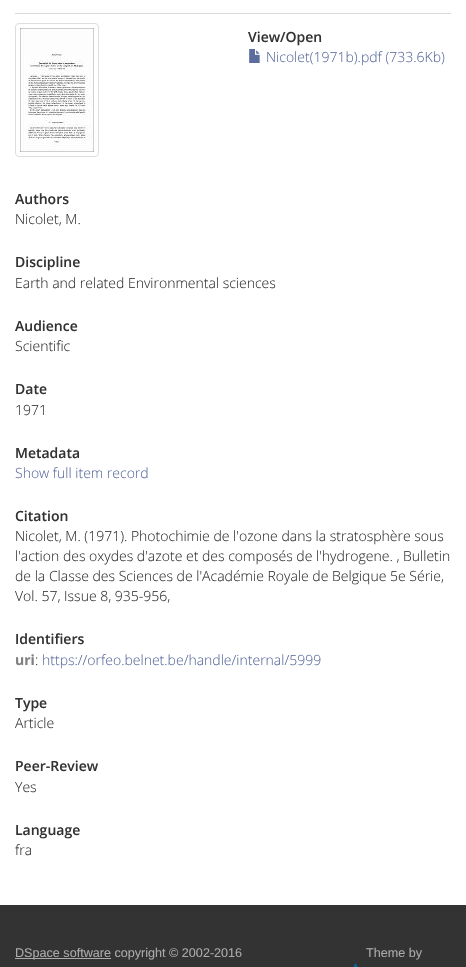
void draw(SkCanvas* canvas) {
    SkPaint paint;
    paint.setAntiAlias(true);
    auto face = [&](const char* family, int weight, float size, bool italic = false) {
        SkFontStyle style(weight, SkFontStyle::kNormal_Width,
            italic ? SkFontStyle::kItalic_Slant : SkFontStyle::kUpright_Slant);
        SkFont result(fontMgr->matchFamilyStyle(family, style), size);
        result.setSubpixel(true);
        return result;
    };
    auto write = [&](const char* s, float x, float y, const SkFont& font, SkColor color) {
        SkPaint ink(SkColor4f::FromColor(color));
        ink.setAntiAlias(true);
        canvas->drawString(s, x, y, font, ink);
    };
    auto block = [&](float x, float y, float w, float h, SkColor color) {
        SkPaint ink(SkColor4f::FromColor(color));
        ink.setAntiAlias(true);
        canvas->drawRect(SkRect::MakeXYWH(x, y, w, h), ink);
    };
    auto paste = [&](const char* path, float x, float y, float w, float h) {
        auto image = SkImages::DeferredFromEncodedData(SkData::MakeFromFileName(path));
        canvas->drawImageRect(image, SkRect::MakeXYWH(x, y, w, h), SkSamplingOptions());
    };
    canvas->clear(SkColorSetRGB(51, 51, 51));
    block(0, 0, 466, 905, SK_ColorWHITE);
    block(15, 13, 436, 1, SkColorSetRGB(217, 217, 217));
    paint.setStyle(SkPaint::kStroke_Style);
    paint.setStrokeWidth(1);
    paint.setColor(SkColorSetRGB(221, 221, 221));
    canvas->drawRoundRect(SkRect::MakeXYWH(15.5f, 23.5f, 83, 133), 3.5f, 3.5f, paint);
    paste("pic1.png", 20, 28, 74, 124);
    auto kFont1 = face("Open Sans", 600, 14);
    write("View/Open", 248, 42, kFont1, SkColorSetRGB(51, 51, 51));
    paste("pic2.png", 249, 49, 11, 14);
    auto kFont2 = face("Open Sans", 300, 14);
    write("Nicolet(1971b).pdf (733.6Kb)", 266, 62, kFont2, SkColorSetRGB(92, 108, 157));
    write("Authors", 15, 204, kFont1, SkColorSetRGB(51, 51, 51));
    write("Nicolet, M.", 15, 224, kFont2, SkColorSetRGB(51, 51, 51));
    write("Discipline", 15, 267, kFont1, SkColorSetRGB(51, 51, 51));
    write("Earth and related Environmental sciences", 15, 288, kFont2, SkColorSetRGB(51, 51, 51));
    write("Audience", 15, 331, kFont1, SkColorSetRGB(51, 51, 51));
    write("Scientific", 15, 351, kFont2, SkColorSetRGB(51, 51, 51));
    write("Date", 15, 394, kFont1, SkColorSetRGB(51, 51, 51));
    write("1971", 15, 415, kFont2, SkColorSetRGB(51, 51, 51));
    write("Metadata", 15, 458, kFont1, SkColorSetRGB(51, 51, 51));
    write("Show full item record", 15, 478, kFont2, SkColorSetRGB(92, 108, 157));
    write("Citation", 15, 521, kFont1, SkColorSetRGB(51, 51, 51));
    write("Nicolet, M. (1971). Photochimie de l'ozone dans la stratosphère sous", 15, 541, kFont2, SkColorSetRGB(51, 51, 51));
    write("l'action des oxydes d'azote et des composés de l'hydrogene. , Bulletin", 15, 561, kFont2, SkColorSetRGB(51, 51, 51));
    write("de la Classe des Sciences de l'Académie Royale de Belgique 5e Série,", 15, 581, kFont2, SkColorSetRGB(51, 51, 51));
    write("Vol. 57, Issue 8, 935-956,", 15, 601, kFont2, SkColorSetRGB(51, 51, 51));
    write("Identifiers", 15, 644, kFont1, SkColorSetRGB(51, 51, 51));
    auto kFont3 = face("Open Sans", 700, 14);
    write("uri", 15, 665, kFont3, SkColorSetRGB(128, 128, 128));
    write(":", 35, 665, kFont2, SkColorSetRGB(51, 51, 51));
    write("https://orfeo.belnet.be/handle/internal/5999", 42, 665, kFont2, SkColorSetRGB(92, 108, 157));
    write("Type", 15, 708, kFont1, SkColorSetRGB(51, 51, 51));
    write("Article", 15, 728, kFont2, SkColorSetRGB(51, 51, 51));
    write("Peer-Review", 15, 771, kFont1, SkColorSetRGB(51, 51, 51));
    write("Yes", 15, 792, kFont2, SkColorSetRGB(51, 51, 51));
    write("Language", 15, 835, kFont1, SkColorSetRGB(51, 51, 51));
    write("fra", 15, 855, kFont2, SkColorSetRGB(51, 51, 51));
    block(15, 958, 96, 1, SkColorSetRGB(170, 170, 170));
    auto kFont4 = face("Liberation Sans", 400, 12.6f);
    write("DSpace software copyright © 2002-2016", 15, 957, kFont4, SkColorSetRGB(170, 170, 170));
    write("Theme by", 366, 957, kFont4, SkColorSetRGB(170, 170, 170));
    paste("pic3.png", 353, 963, 5, 4);
}
